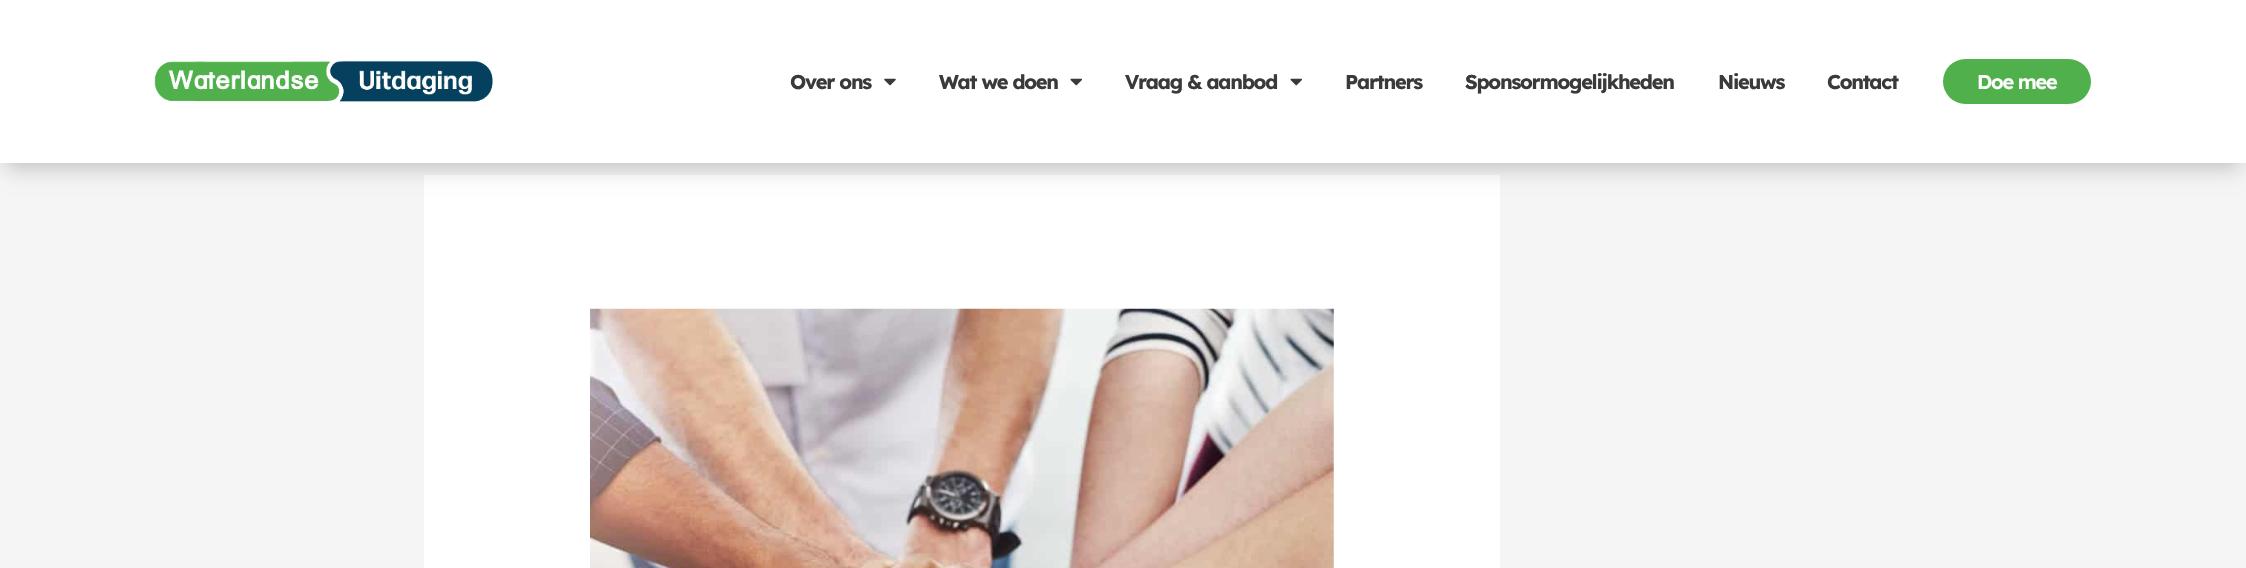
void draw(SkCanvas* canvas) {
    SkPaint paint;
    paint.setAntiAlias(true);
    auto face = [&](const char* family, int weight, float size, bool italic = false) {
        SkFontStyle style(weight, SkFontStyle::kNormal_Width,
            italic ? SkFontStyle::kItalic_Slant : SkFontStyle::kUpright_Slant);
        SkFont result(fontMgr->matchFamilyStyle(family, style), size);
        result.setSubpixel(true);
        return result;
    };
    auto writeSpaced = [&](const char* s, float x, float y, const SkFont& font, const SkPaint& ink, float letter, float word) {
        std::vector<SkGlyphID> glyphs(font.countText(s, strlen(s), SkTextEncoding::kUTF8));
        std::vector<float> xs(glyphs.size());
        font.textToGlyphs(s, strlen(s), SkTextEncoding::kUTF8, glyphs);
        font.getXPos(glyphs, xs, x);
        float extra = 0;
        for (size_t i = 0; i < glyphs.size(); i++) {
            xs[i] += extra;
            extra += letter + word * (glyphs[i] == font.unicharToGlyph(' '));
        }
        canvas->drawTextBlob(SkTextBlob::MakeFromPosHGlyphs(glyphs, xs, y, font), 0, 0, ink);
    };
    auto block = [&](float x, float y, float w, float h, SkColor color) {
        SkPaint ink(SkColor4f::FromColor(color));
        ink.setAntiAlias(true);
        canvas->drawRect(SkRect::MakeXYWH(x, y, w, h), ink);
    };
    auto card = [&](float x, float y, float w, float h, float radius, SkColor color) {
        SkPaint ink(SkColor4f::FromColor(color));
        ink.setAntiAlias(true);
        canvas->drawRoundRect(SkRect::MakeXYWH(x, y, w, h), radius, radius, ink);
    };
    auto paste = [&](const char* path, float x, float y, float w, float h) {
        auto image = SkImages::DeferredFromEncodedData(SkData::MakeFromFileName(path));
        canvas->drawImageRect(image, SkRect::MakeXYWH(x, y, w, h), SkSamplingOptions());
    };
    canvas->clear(SkColorSetRGB(245, 245, 245));
    block(424, 175, 1076, 393, SK_ColorWHITE);
    paint.setColor(SkColorSetARGB(51, 0, 0, 0));
    paint.setMaskFilter(SkMaskFilter::MakeBlur(kNormal_SkBlurStyle, 9.5f));
    canvas->drawRect(SkRect::MakeXYWH(6, 19, 2234, 150), paint);
    paint.setMaskFilter(nullptr);
    block(0, 0, 2246, 163, SK_ColorWHITE);
    paste("pic1.png", 154, 60, 339, 42);
    auto kFont1 = face("Lexend Deca", 700, 20);
    paint.setColor(SkColorSetRGB(58, 58, 58));
    writeSpaced("Over ons", 790, 89, kFont1, paint, -1.25f, 0);
    paste("pic2.png", 884, 78, 12, 8);
    writeSpaced("Wat we doen", 939, 89, kFont1, paint, -1.25f, 0);
    paste("pic3.png", 1070, 78, 12, 8);
    writeSpaced("Vraag & aanbod", 1125, 89, kFont1, paint, -1.25f, 0);
    paste("pic3.png", 1290, 78, 12, 8);
    writeSpaced("Partners", 1345, 89, kFont1, paint, -1.25f, 0);
    writeSpaced("Sponsormogelijkheden", 1465, 89, kFont1, paint, -1.25f, 0);
    writeSpaced("Nieuws", 1718, 89, kFont1, paint, -1.25f, 0);
    writeSpaced("Contact", 1827, 89, kFont1, paint, -1.25f, 0);
    card(1943, 59, 148, 45, 22.5f, SkColorSetRGB(80, 176, 76));
    auto kFont2 = face("Lexend Deca", 600, 20);
    paint.setColor(SK_ColorWHITE);
    writeSpaced("Doe mee", 1977, 89, kFont2, paint, -1.25f, 0);
    paste("pic4.png", 590, 308, 744, 260);
}
